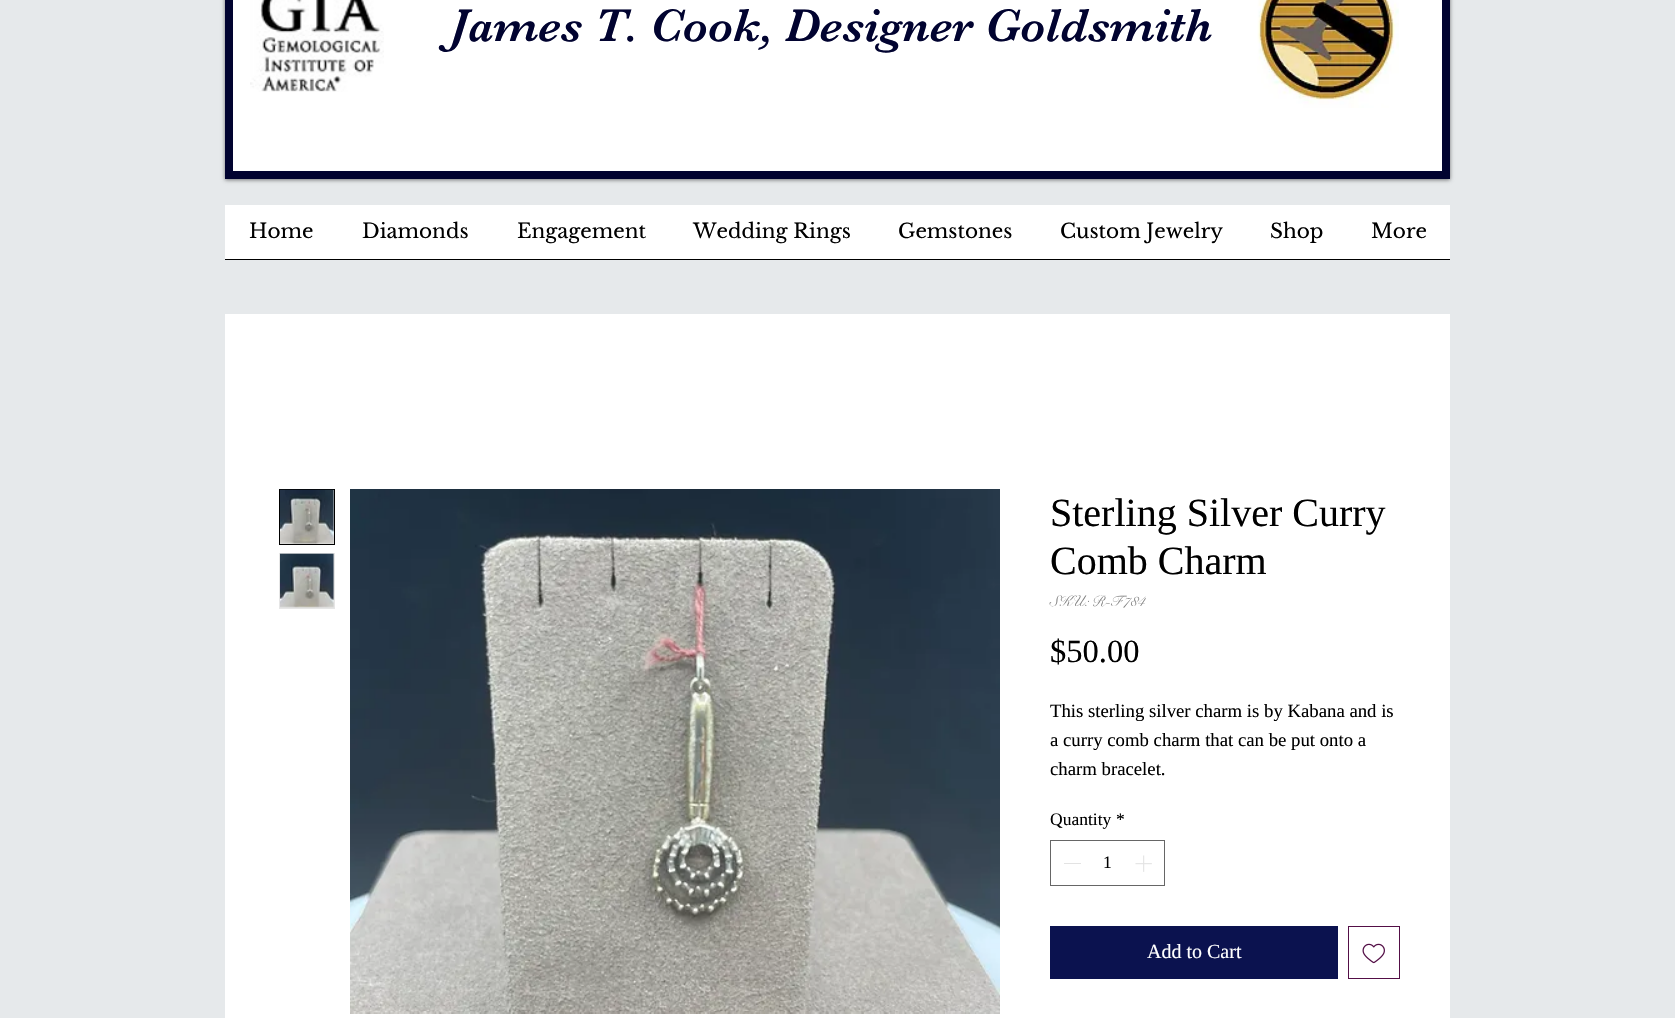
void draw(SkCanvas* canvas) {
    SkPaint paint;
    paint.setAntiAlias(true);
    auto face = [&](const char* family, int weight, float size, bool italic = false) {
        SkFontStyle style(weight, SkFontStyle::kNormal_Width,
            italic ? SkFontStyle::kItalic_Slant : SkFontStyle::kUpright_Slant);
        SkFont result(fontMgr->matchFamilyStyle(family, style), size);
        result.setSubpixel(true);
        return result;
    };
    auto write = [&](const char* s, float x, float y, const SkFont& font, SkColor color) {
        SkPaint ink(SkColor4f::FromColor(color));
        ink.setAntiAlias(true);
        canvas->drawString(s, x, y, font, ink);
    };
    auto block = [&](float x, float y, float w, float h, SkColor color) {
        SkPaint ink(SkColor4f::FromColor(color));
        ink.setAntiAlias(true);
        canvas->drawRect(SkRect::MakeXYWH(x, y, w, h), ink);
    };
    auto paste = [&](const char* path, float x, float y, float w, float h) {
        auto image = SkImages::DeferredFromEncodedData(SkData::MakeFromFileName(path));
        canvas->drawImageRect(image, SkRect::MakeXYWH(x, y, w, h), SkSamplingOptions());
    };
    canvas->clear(SkColorSetRGB(230, 233, 235));
    paint.setColor(SkColorSetARGB(128, 0, 0, 0));
    paint.setMaskFilter(SkMaskFilter::MakeBlur(kNormal_SkBlurStyle, 2));
    canvas->drawRect(SkRect::MakeXYWH(225, -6, 1225, 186), paint);
    paint.setMaskFilter(nullptr);
    paint.setColor(SK_ColorWHITE);
    canvas->drawRect(SkRect::MakeXYWH(229, -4, 1217, 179), paint);
    paint.setStyle(SkPaint::kStroke_Style);
    paint.setStrokeWidth(8);
    paint.setColor(SkColorSetRGB(1, 3, 48));
    canvas->drawRect(SkRect::MakeXYWH(229, -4, 1217, 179), paint);
    paste("pic1.png", 250, 0, 134, 92);
    auto kFont1 = face("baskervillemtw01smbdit", 400, 47.5f);
    write("James T. Cook, Designer Goldsmith", 450, 41, kFont1, SkColorSetRGB(1, 3, 48));
    paste("pic2.png", 1257, 0, 142, 108);
    block(225, 205, 1225, 54, SK_ColorWHITE);
    block(225, 259, 1225, 1, SK_ColorBLACK);
    auto kFont2 = face("Libre Baskerville", 400, 20);
    write("Home", 249, 238, kFont2, SK_ColorBLACK);
    write("Diamonds", 362, 238, kFont2, SK_ColorBLACK);
    write("Engagement", 517, 238, kFont2, SK_ColorBLACK);
    write("Wedding Rings", 693, 238, kFont2, SK_ColorBLACK);
    write("Gemstones", 898, 238, kFont2, SK_ColorBLACK);
    write("Custom Jewelry", 1060, 238, kFont2, SK_ColorBLACK);
    write("Shop", 1270, 238, kFont2, SK_ColorBLACK);
    write("More", 1371, 238, kFont2, SK_ColorBLACK);
    block(225, 314, 1225, 704, SK_ColorWHITE);
    paint.setStyle(SkPaint::kFill_Style);
    paint.setColor(SkColorSetRGB(230, 230, 230));
    canvas->drawRect(SkRect::MakeXYWH(279.5f, 489.5f, 55, 55), paint);
    paint.setStyle(SkPaint::kStroke_Style);
    paint.setStrokeWidth(1);
    paint.setColor(SK_ColorBLACK);
    canvas->drawRect(SkRect::MakeXYWH(279.5f, 489.5f, 55, 55), paint);
    paste("pic3.png", 280, 489, 54, 55);
    block(279, 553, 56, 56, SkColorSetRGB(230, 230, 230));
    paste("pic4.png", 280, 553, 54, 55);
    paste("pic5.png", 350, 489, 650, 525);
    auto kFont3 = face("Liberation Serif", 400, 40);
    write("Sterling Silver Curry", 1050, 526, kFont3, SK_ColorBLACK);
    write("Comb Charm", 1050, 574, kFont3, SK_ColorBLACK);
    auto kFont4 = face("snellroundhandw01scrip", 400, 15);
    write("SKU: R-F784", 1050, 606, kFont4, SkColorSetRGB(129, 129, 129));
    auto kFont5 = face("Liberation Serif", 400, 32.5f);
    write("$50.00", 1050, 662, kFont5, SK_ColorBLACK);
    auto kFont6 = face("Liberation Serif", 400, 18.75f);
    write("This sterling silver charm is by Kabana and is", 1050, 717, kFont6, SK_ColorBLACK);
    write("a curry comb charm that can be put onto a", 1050, 746, kFont6, SK_ColorBLACK);
    write("charm bracelet.", 1050, 775, kFont6, SK_ColorBLACK);
    auto kFont7 = face("Liberation Serif", 400, 17.5f);
    write("Quantity", 1050, 825, kFont7, SK_ColorBLACK);
    write("*", 1116, 825, kFont7, SK_ColorBLACK);
    paint.setColor(SkColorSetRGB(102, 102, 102));
    canvas->drawRect(SkRect::MakeXYWH(1050.5f, 840.5f, 114, 45), paint);
    block(1064, 863, 17, 1, SkColorSetRGB(227, 227, 227));
    write("1", 1103, 868, kFont7, SK_ColorBLACK);
    paste("pic6.png", 1135, 855, 17, 17);
    block(1050, 926, 288, 53, SkColorSetRGB(11, 18, 79));
    auto kFont8 = face("Liberation Serif", 400, 20);
    write("Add to Cart", 1147, 958, kFont8, SK_ColorWHITE);
    paint.setColor(SkColorSetRGB(83, 14, 70));
    canvas->drawRect(SkRect::MakeXYWH(1348.5f, 926.5f, 51, 52), paint);
    paste("pic7.png", 1362, 943, 23, 21);
}
